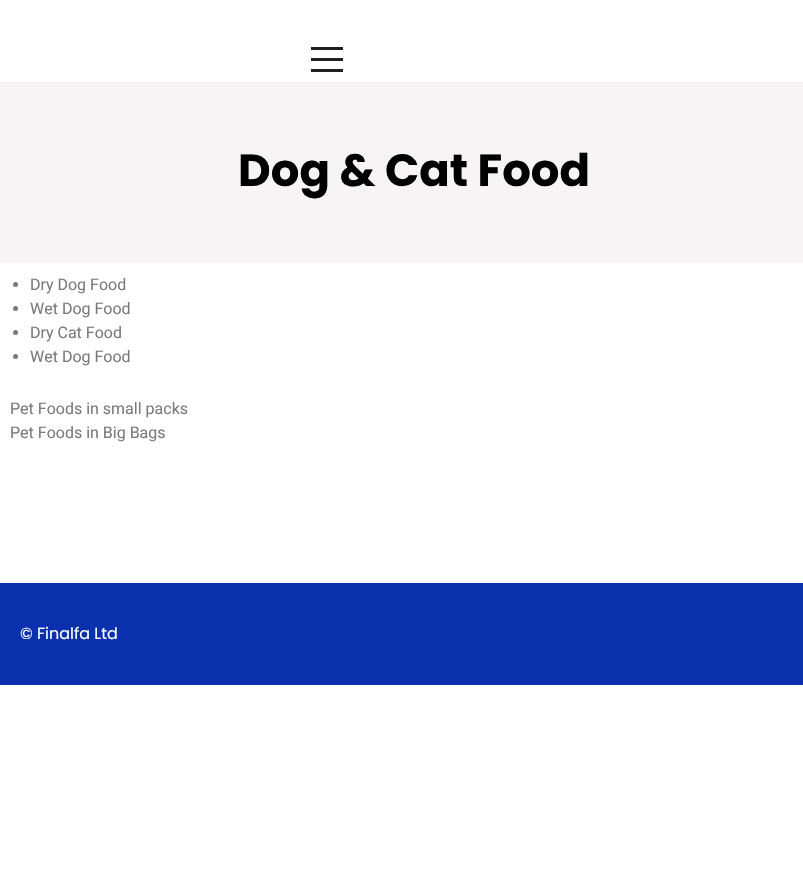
void draw(SkCanvas* canvas) {
    SkPaint paint;
    paint.setAntiAlias(true);
    auto face = [&](const char* family, int weight, float size, bool italic = false) {
        SkFontStyle style(weight, SkFontStyle::kNormal_Width,
            italic ? SkFontStyle::kItalic_Slant : SkFontStyle::kUpright_Slant);
        SkFont result(fontMgr->matchFamilyStyle(family, style), size);
        result.setSubpixel(true);
        return result;
    };
    auto write = [&](const char* s, float x, float y, const SkFont& font, SkColor color) {
        SkPaint ink(SkColor4f::FromColor(color));
        ink.setAntiAlias(true);
        canvas->drawString(s, x, y, font, ink);
    };
    auto block = [&](float x, float y, float w, float h, SkColor color) {
        SkPaint ink(SkColor4f::FromColor(color));
        ink.setAntiAlias(true);
        canvas->drawRect(SkRect::MakeXYWH(x, y, w, h), ink);
    };
    canvas->clear(SK_ColorWHITE);
    block(0, 82, 803, 1, SkColorSetRGB(238, 239, 245));
    block(311, 47, 32, 3, SkColorSetRGB(33, 32, 31));
    block(311, 58, 32, 3, SkColorSetRGB(33, 32, 31));
    block(311, 69, 32, 3, SkColorSetRGB(33, 32, 31));
    block(0, 83, 803, 180, SkColorSetRGB(246, 244, 244));
    auto kFont1 = face("Poppins", 700, 45);
    write("Dog & Cat Food", 238, 186, kFont1, SK_ColorBLACK);
    paint.setColor(SkColorSetRGB(122, 122, 122));
    canvas->drawCircle(15.5f, 284.5f, 2.5f, paint);
    auto kFont2 = face("Roboto", 400, 16);
    write("Dry Dog Food", 30, 290, kFont2, SkColorSetRGB(122, 122, 122));
    canvas->drawCircle(15.5f, 308.5f, 2.5f, paint);
    write("Wet Dog Food", 30, 314, kFont2, SkColorSetRGB(122, 122, 122));
    canvas->drawCircle(15.5f, 332.5f, 2.5f, paint);
    write("Dry Cat Food", 30, 338, kFont2, SkColorSetRGB(122, 122, 122));
    canvas->drawCircle(15.5f, 356.5f, 2.5f, paint);
    write("Wet Dog Food", 30, 362, kFont2, SkColorSetRGB(122, 122, 122));
    write("Pet Foods in small packs", 10, 414, kFont2, SkColorSetRGB(122, 122, 122));
    write("Pet Foods in Big Bags", 10, 438, kFont2, SkColorSetRGB(122, 122, 122));
    block(0, 583, 803, 102, SkColorSetRGB(10, 48, 173));
    auto kFont3 = face("Poppins", 400, 16);
    write("© Finalfa Ltd", 20, 639, kFont3, SK_ColorWHITE);
}
